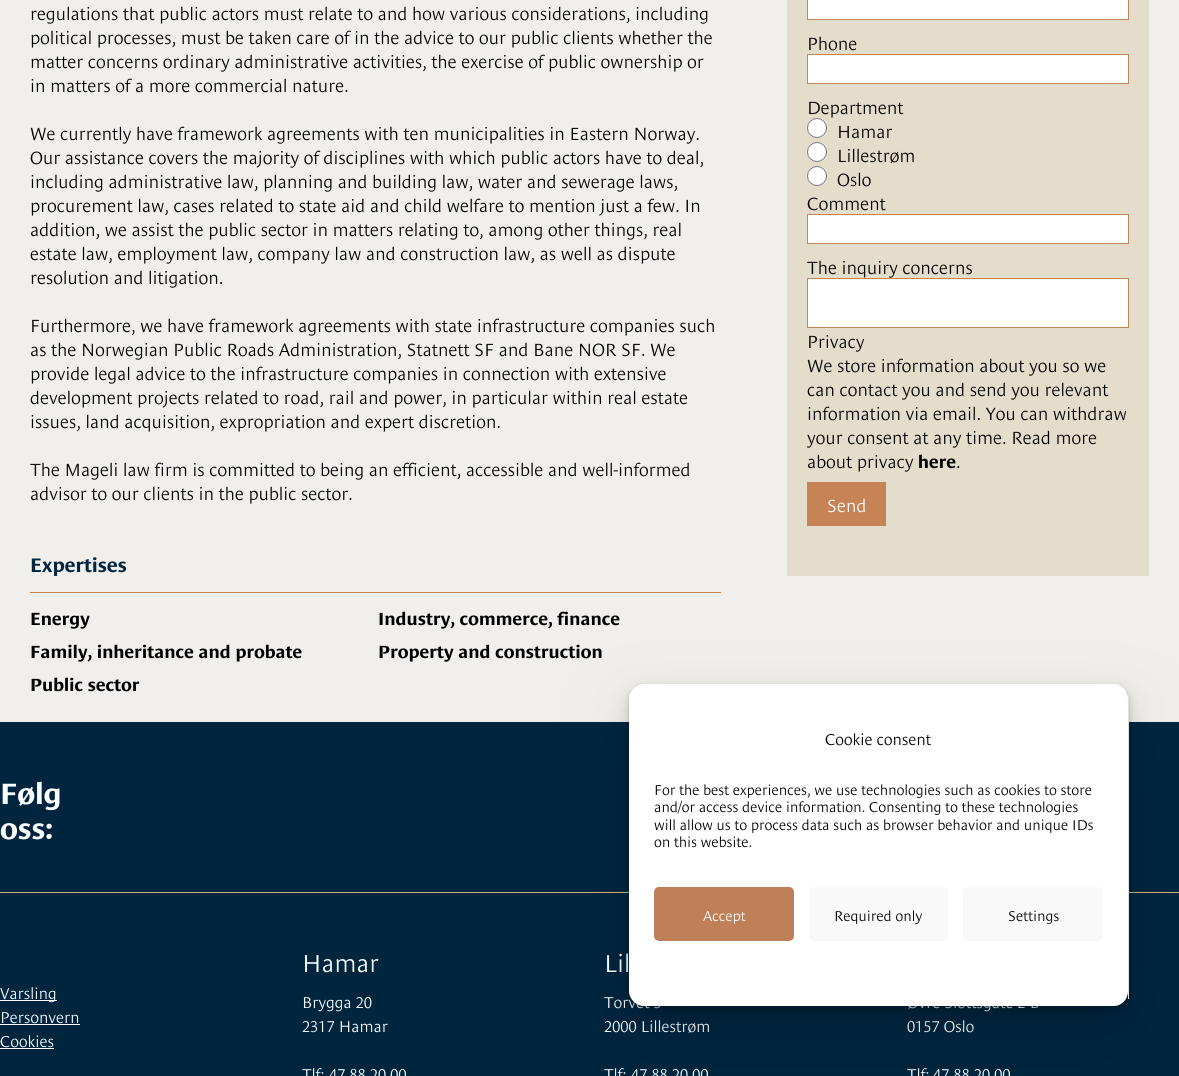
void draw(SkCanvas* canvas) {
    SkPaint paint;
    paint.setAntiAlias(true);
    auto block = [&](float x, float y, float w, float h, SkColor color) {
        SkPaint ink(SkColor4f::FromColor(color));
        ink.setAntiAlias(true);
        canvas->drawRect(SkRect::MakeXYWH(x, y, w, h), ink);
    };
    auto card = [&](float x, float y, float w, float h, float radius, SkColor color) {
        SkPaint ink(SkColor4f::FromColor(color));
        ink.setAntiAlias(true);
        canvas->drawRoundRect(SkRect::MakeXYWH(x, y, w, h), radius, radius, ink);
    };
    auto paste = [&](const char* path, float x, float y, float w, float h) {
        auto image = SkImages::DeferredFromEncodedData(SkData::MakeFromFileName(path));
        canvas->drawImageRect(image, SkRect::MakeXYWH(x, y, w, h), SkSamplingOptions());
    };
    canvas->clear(SkColorSetRGB(240, 239, 235));
    paste("pic1.png", 31, 6, 677, 18);
    paste("pic2.png", 31, 30, 681, 18);
    paste("pic3.png", 31, 54, 673, 18);
    paste("pic4.png", 31, 78, 317, 15);
    paste("pic5.png", 30, 126, 669, 18);
    paste("pic6.png", 30, 150, 673, 18);
    paste("pic7.png", 31, 174, 646, 18);
    paste("pic8.png", 31, 198, 669, 18);
    paste("pic9.png", 31, 222, 650, 18);
    paste("pic10.png", 30, 246, 645, 18);
    paste("pic11.png", 31, 270, 191, 18);
    paste("pic12.png", 32, 318, 682, 18);
    paste("pic13.png", 31, 342, 644, 18);
    paste("pic14.png", 31, 366, 635, 18);
    paste("pic15.png", 30, 390, 658, 18);
    paste("pic16.png", 31, 414, 469, 18);
    paste("pic17.png", 30, 462, 659, 18);
    paste("pic18.png", 31, 486, 321, 18);
    paste("pic19.png", 31, 557, 96, 19);
    block(30, 592, 691, 1, SkColorSetRGB(198, 131, 86));
    paste("pic20.png", 31, 612, 59, 17);
    paste("pic21.png", 379, 611, 241, 18);
    paste("pic22.png", 31, 644, 271, 18);
    paste("pic23.png", 379, 644, 223, 18);
    paste("pic24.png", 31, 677, 109, 15);
    block(787, 0, 362, 576, SkColorSetRGB(228, 221, 203));
    paint.setColor(SK_ColorWHITE);
    canvas->drawRect(SkRect::MakeXYWH(807.5f, -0.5f, 321, 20), paint);
    paint.setStyle(SkPaint::kStroke_Style);
    paint.setStrokeWidth(1);
    paint.setColor(SkColorSetRGB(198, 131, 86));
    canvas->drawRect(SkRect::MakeXYWH(807.5f, -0.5f, 321, 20), paint);
    paste("pic25.png", 809, 36, 48, 15);
    paint.setStyle(SkPaint::kFill_Style);
    paint.setColor(SK_ColorWHITE);
    canvas->drawRect(SkRect::MakeXYWH(807.5f, 54.5f, 321, 29), paint);
    paint.setStyle(SkPaint::kStroke_Style);
    paint.setColor(SkColorSetRGB(198, 131, 86));
    canvas->drawRect(SkRect::MakeXYWH(807.5f, 54.5f, 321, 29), paint);
    paste("pic26.png", 809, 101, 95, 17);
    paint.setStyle(SkPaint::kFill_Style);
    paint.setColor(SK_ColorWHITE);
    canvas->drawCircle(817, 128, 9.5f, paint);
    paint.setStyle(SkPaint::kStroke_Style);
    paint.setColor(SkColorSetRGB(118, 118, 118));
    canvas->drawCircle(817, 128, 9.5f, paint);
    paste("pic27.png", 839, 125, 53, 14);
    paint.setStyle(SkPaint::kFill_Style);
    paint.setColor(SK_ColorWHITE);
    canvas->drawCircle(817, 152, 9.5f, paint);
    paint.setStyle(SkPaint::kStroke_Style);
    paint.setColor(SkColorSetRGB(118, 118, 118));
    canvas->drawCircle(817, 152, 9.5f, paint);
    paste("pic28.png", 839, 148, 75, 16);
    paint.setStyle(SkPaint::kFill_Style);
    paint.setColor(SK_ColorWHITE);
    canvas->drawCircle(817, 176, 9.5f, paint);
    paint.setStyle(SkPaint::kStroke_Style);
    paint.setColor(SkColorSetRGB(118, 118, 118));
    canvas->drawCircle(817, 176, 9.5f, paint);
    paste("pic29.png", 837, 172, 34, 15);
    paste("pic30.png", 807, 197, 79, 14);
    paint.setStyle(SkPaint::kFill_Style);
    paint.setColor(SK_ColorWHITE);
    canvas->drawRect(SkRect::MakeXYWH(807.5f, 214.5f, 321, 29), paint);
    paint.setStyle(SkPaint::kStroke_Style);
    paint.setColor(SkColorSetRGB(198, 131, 86));
    canvas->drawRect(SkRect::MakeXYWH(807.5f, 214.5f, 321, 29), paint);
    paste("pic31.png", 807, 260, 165, 18);
    paint.setStyle(SkPaint::kFill_Style);
    paint.setColor(SK_ColorWHITE);
    canvas->drawRect(SkRect::MakeXYWH(807.5f, 278.5f, 321, 49), paint);
    paint.setStyle(SkPaint::kStroke_Style);
    paint.setColor(SkColorSetRGB(198, 131, 86));
    canvas->drawRect(SkRect::MakeXYWH(807.5f, 278.5f, 321, 49), paint);
    paste("pic32.png", 809, 334, 56, 18);
    paste("pic33.png", 807, 358, 299, 18);
    paste("pic34.png", 807, 382, 302, 18);
    paste("pic35.png", 808, 406, 319, 15);
    paste("pic36.png", 806, 430, 291, 18);
    paste("pic37.png", 808, 454, 106, 18);
    paste("pic38.png", 919, 454, 37, 15);
    paste("pic39.png", 957, 466, 3, 2);
    block(807, 482, 79, 44, SkColorSetRGB(198, 131, 86));
    paste("pic40.png", 828, 498, 37, 15);
    block(0, 722, 1179, 354, SkColorSetRGB(0, 37, 63));
    block(0, 892, 1179, 1, SkColorSetRGB(199, 179, 127));
    paste("pic59.png", 607, 953, 21, 19);
    paste("pic60.png", 604, 997, 57, 12);
    paste("pic61.png", 604, 1020, 105, 13);
    paste("pic57.png", 604, 1068, 22, 8);
    paste("pic58.png", 631, 1068, 77, 8);
    paste("pic62.png", 908, 1006, 131, 6);
    paste("pic63.png", 907, 1020, 67, 13);
    paste("pic57.png", 907, 1068, 22, 8);
    paste("pic58.png", 933, 1068, 77, 8);
    paint.setStyle(SkPaint::kFill_Style);
    paint.setColor(SkColorSetARGB(18, 0, 0, 0));
    paint.setMaskFilter(SkMaskFilter::MakeBlur(kNormal_SkBlurStyle, 32));
    canvas->drawRoundRect(SkRect::MakeXYWH(629, 716, 500, 322), 15, 15, paint);
    paint.setMaskFilter(nullptr);
    paint.setMaskFilter(SkMaskFilter::MakeBlur(kNormal_SkBlurStyle, 16));
    canvas->drawRoundRect(SkRect::MakeXYWH(629, 700, 500, 322), 15, 15, paint);
    paint.setMaskFilter(nullptr);
    paint.setMaskFilter(SkMaskFilter::MakeBlur(kNormal_SkBlurStyle, 8));
    canvas->drawRoundRect(SkRect::MakeXYWH(629, 692, 500, 322), 15, 15, paint);
    paint.setMaskFilter(nullptr);
    paint.setMaskFilter(SkMaskFilter::MakeBlur(kNormal_SkBlurStyle, 4));
    canvas->drawRoundRect(SkRect::MakeXYWH(629, 688, 500, 322), 15, 15, paint);
    paint.setMaskFilter(nullptr);
    paint.setMaskFilter(SkMaskFilter::MakeBlur(kNormal_SkBlurStyle, 2));
    canvas->drawRoundRect(SkRect::MakeXYWH(629, 686, 500, 322), 15, 15, paint);
    paint.setMaskFilter(nullptr);
    paint.setMaskFilter(SkMaskFilter::MakeBlur(kNormal_SkBlurStyle, 1));
    canvas->drawRoundRect(SkRect::MakeXYWH(629, 685, 500, 322), 15, 15, paint);
    paint.setMaskFilter(nullptr);
    paint.setColor(SK_ColorWHITE);
    canvas->drawPath(SkPathBuilder().moveTo(644, 684).lineTo(1114, 684).cubicTo(1122, 684, 1128, 691, 1128, 699).lineTo(1128, 991).cubicTo(1128, 999, 1122, 1006, 1114, 1006).lineTo(644, 1006).cubicTo(636, 1006, 629, 999, 629, 991).lineTo(629, 699).cubicTo(629, 691, 636, 684, 644, 684).close().detach(), paint);
    block(1128, 692, 1, 307, SkColorSetRGB(224, 224, 224));
    paste("pic41.png", 825, 733, 107, 13);
    paste("pic42.png", 655, 784, 437, 14);
    paste("pic43.png", 654, 800, 424, 15);
    paste("pic44.png", 654, 819, 439, 14);
    paste("pic45.png", 654, 836, 98, 12);
    card(654, 887, 140, 54, 5, SkColorSetRGB(191, 127, 89));
    paste("pic46.png", 703, 911, 43, 13);
    card(809, 887, 139, 54, 5, SkColorSetRGB(249, 249, 249));
    paste("pic47.png", 835, 910, 87, 14);
    card(963, 887, 140, 54, 5, SkColorSetRGB(249, 249, 249));
    paste("pic48.png", 1009, 910, 50, 14);
    paste("pic49.png", 2, 781, 58, 30);
    paste("pic50.png", 0, 823, 52, 17);
    block(0, 1000, 57, 1, SK_ColorWHITE);
    paste("pic51.png", 0, 987, 56, 16);
    paste("pic52.png", 1, 1012, 78, 12);
    block(0, 1024, 80, 1, SK_ColorWHITE);
    paste("pic53.png", 0, 1035, 54, 13);
    block(0, 1048, 54, 1, SK_ColorWHITE);
    paste("pic54.png", 305, 955, 74, 18);
    paste("pic55.png", 303, 996, 69, 16);
    paste("pic56.png", 302, 1020, 86, 13);
    paste("pic57.png", 302, 1068, 22, 8);
    paste("pic58.png", 329, 1068, 77, 8);
}
